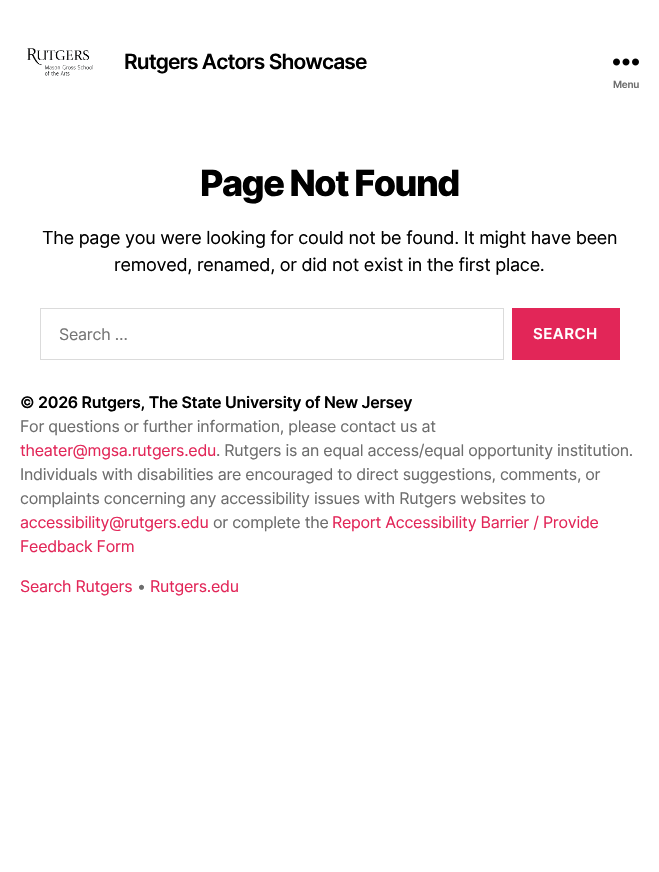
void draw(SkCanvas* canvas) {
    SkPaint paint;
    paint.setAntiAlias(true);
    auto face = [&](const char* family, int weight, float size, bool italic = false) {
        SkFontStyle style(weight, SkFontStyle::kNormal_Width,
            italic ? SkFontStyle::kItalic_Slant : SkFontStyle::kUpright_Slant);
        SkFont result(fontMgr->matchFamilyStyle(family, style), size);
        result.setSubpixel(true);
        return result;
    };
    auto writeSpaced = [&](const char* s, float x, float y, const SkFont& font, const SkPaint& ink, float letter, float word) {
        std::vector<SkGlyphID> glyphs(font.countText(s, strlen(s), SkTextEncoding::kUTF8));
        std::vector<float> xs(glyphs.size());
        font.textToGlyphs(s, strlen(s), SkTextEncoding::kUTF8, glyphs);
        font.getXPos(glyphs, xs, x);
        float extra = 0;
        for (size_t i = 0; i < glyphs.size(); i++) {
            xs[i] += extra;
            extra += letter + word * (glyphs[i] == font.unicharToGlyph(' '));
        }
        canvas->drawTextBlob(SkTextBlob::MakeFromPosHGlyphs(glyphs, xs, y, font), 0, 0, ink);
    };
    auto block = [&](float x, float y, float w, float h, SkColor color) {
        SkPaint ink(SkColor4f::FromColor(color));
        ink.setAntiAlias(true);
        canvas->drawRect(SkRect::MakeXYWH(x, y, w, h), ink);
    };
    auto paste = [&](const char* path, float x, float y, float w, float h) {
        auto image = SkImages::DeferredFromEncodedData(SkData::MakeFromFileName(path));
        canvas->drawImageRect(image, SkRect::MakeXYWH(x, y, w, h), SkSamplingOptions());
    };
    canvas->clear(SK_ColorWHITE);
    paste("pic1.png", 27, 48, 66, 28);
    auto kFont1 = face("Inter", 600, 21);
    paint.setColor(SK_ColorBLACK);
    writeSpaced("Rutgers Actors Showcase", 124, 69, kFont1, paint, -0.9f, 0);
    paste("pic2.png", 613, 58, 26, 8);
    auto kFont2 = face("Inter", 600, 10);
    paint.setColor(SkColorSetRGB(109, 109, 109));
    writeSpaced("Menu", 613, 88, kFont2, paint, -0.27f, 0);
    auto kFont3 = face("Inter", 800, 36);
    paint.setColor(SK_ColorBLACK);
    writeSpaced("Page Not Found", 200, 196, kFont3, paint, -1.5f, 0);
    auto kFont4 = face("Inter", 400, 18);
    writeSpaced("The page you were looking for could not be found. It might have been", 42, 244, kFont4, paint, -0.27f, 0);
    writeSpaced("removed, renamed, or did not exist in the first place.", 114, 271, kFont4, paint, -0.27f, 0);
    paint.setStyle(SkPaint::kStroke_Style);
    paint.setStrokeWidth(1);
    paint.setColor(SkColorSetRGB(219, 219, 219));
    canvas->drawRect(SkRect::MakeXYWH(40.5f, 308.5f, 463, 51), paint);
    auto kFont5 = face("Inter", 400, 16);
    paint.setStyle(SkPaint::kFill_Style);
    paint.setColor(SkColorSetRGB(117, 117, 117));
    writeSpaced("Search …", 59, 340, kFont5, paint, -0.25f, 0);
    block(512, 308, 108, 52, SkColorSetRGB(226, 38, 88));
    auto kFont6 = face("Inter", 600, 15);
    paint.setColor(SK_ColorWHITE);
    writeSpaced("SEARCH", 533, 339, kFont6, paint, 0.5f, 0);
    auto kFont7 = face("Inter", 600, 16);
    paint.setColor(SK_ColorBLACK);
    writeSpaced("© 2026 Rutgers, The State University of New Jersey", 20, 408, kFont7, paint, -0.27f, 0);
    paint.setColor(SkColorSetRGB(109, 109, 109));
    writeSpaced("For questions or further information, please contact us at", 20, 432, kFont5, paint, -0.27f, 0);
    paint.setColor(SkColorSetRGB(226, 38, 88));
    writeSpaced("theater@mgsa.rutgers.edu", 20, 456, kFont5, paint, -0.27f, 0);
    paint.setColor(SkColorSetRGB(109, 109, 109));
    writeSpaced(". Rutgers is an equal access/equal opportunity institution.", 216, 456, kFont5, paint, -0.27f, 0);
    writeSpaced("Individuals with disabilities are encouraged to direct suggestions, comments, or", 20, 480, kFont5, paint, -0.27f, 0);
    writeSpaced("complaints concerning any accessibility issues with Rutgers websites to", 20, 504, kFont5, paint, -0.27f, 0);
    paint.setColor(SkColorSetRGB(226, 38, 88));
    writeSpaced("accessibility@rutgers.edu", 20, 528, kFont5, paint, -0.27f, 0);
    paint.setColor(SkColorSetRGB(109, 109, 109));
    writeSpaced("or complete the", 213, 528, kFont5, paint, -0.27f, 0);
    paint.setColor(SkColorSetRGB(226, 38, 88));
    writeSpaced("Report Accessibility Barrier / Provide", 332, 528, kFont5, paint, -0.27f, 0);
    writeSpaced("Feedback Form", 20, 552, kFont5, paint, -0.27f, 0);
    writeSpaced("Search Rutgers", 20, 592, kFont5, paint, -0.27f, 0);
    paint.setColor(SkColorSetRGB(109, 109, 109));
    writeSpaced("•", 137, 592, kFont5, paint, -0.27f, 0);
    paint.setColor(SkColorSetRGB(226, 38, 88));
    writeSpaced("Rutgers.edu", 150, 592, kFont5, paint, -0.27f, 0);
}
